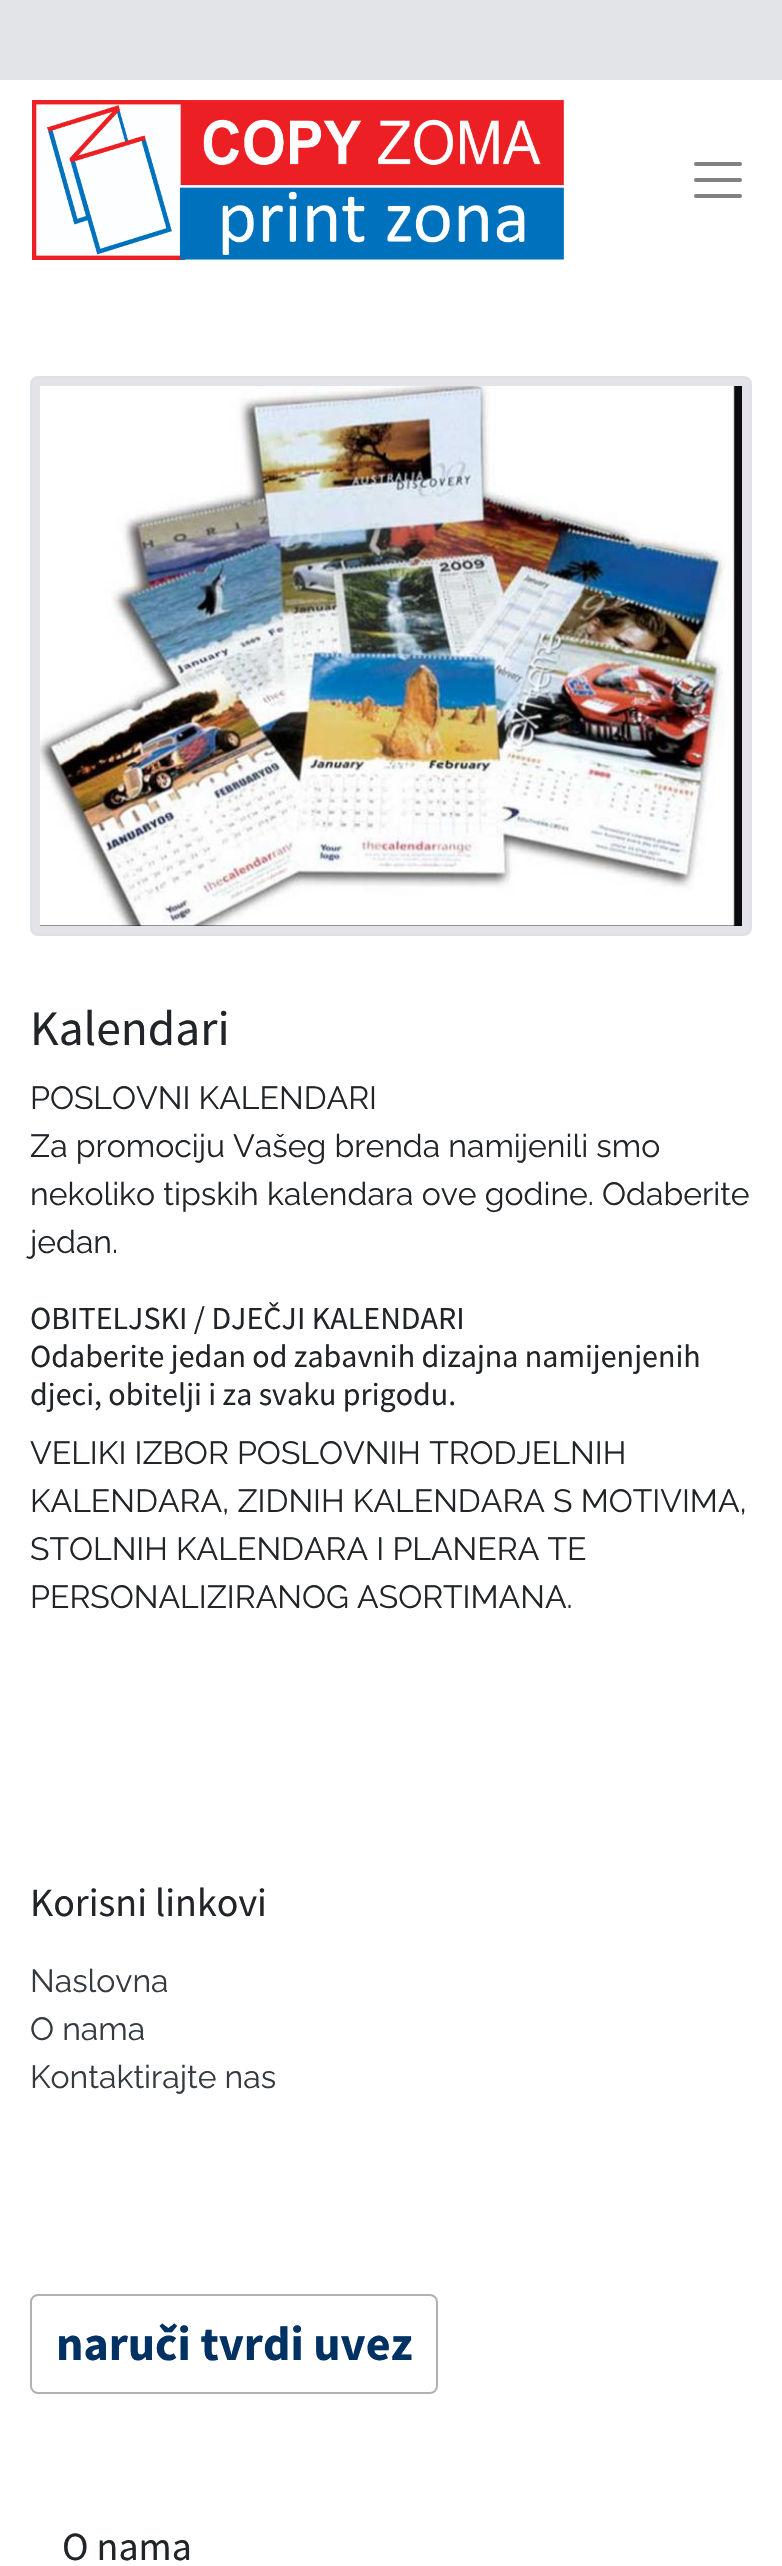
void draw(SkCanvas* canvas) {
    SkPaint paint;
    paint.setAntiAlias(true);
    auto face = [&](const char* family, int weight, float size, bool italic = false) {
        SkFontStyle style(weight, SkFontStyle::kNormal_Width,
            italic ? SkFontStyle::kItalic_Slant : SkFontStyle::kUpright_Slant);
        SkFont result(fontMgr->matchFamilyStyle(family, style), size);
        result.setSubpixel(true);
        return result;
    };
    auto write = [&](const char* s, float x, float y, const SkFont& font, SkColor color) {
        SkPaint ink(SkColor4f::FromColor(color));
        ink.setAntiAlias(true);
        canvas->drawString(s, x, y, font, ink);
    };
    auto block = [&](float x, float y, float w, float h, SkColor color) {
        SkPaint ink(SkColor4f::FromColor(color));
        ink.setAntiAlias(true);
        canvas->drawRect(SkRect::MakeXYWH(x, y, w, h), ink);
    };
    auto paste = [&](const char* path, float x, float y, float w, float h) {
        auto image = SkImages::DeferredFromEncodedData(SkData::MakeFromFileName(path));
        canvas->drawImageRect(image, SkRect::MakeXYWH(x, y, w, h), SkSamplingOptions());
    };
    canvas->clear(SkColorSetRGB(226, 228, 232));
    block(0, 80, 782, 2486, SK_ColorWHITE);
    paste("pic1.png", 32, 100, 532, 160);
    paint.setStyle(SkPaint::kStroke_Style);
    paint.setStrokeWidth(4);
    paint.setStrokeCap(SkPaint::kRound_Cap);
    paint.setColor(SkColorSetRGB(128, 128, 128));
    canvas->drawPath(SkPathBuilder().moveTo(696, 164).lineTo(740, 164).moveTo(696, 180).lineTo(740, 180).moveTo(696, 196).lineTo(740, 196).detach(), paint);
    paint.setStyle(SkPaint::kFill_Style);
    paint.setColor(SkColorSetRGB(226, 228, 232));
    canvas->drawRoundRect(SkRect::MakeXYWH(31, 377, 720, 558), 7, 7, paint);
    paint.setStyle(SkPaint::kStroke_Style);
    paint.setStrokeWidth(2);
    paint.setStrokeCap(SkPaint::kButt_Cap);
    paint.setColor(SkColorSetRGB(222, 226, 230));
    canvas->drawRoundRect(SkRect::MakeXYWH(31, 377, 720, 558), 7, 7, paint);
    paste("pic2.png", 40, 386, 702, 540);
    auto kFont1 = face("Source Sans Pro", 400, 49.5f);
    write("Kalendari", 30, 1045, kFont1, SkColorSetRGB(33, 37, 41));
    auto kFont2 = face("Raleway", 400, 32);
    write("POSLOVNI KALENDARI", 30, 1109, kFont2, SkColorSetRGB(33, 37, 41));
    write("Za promociju Vašeg brenda namijenili smo", 30, 1157, kFont2, SkColorSetRGB(33, 37, 41));
    write("nekoliko tipskih kalendara ove godine. Odaberite", 30, 1205, kFont2, SkColorSetRGB(33, 37, 41));
    write("jedan.", 30, 1253, kFont2, SkColorSetRGB(33, 37, 41));
    auto kFont3 = face("Source Sans Pro", 400, 32);
    write("OBITELJSKI / DJEČJI KALENDARI", 30, 1329, kFont3, SkColorSetRGB(33, 37, 41));
    write("Odaberite jedan od zabavnih dizajna namijenjenih", 30, 1367, kFont3, SkColorSetRGB(33, 37, 41));
    write("djeci, obitelji i za svaku prigodu.", 30, 1405, kFont3, SkColorSetRGB(33, 37, 41));
    write("VELIKI IZBOR POSLOVNIH TRODJELNIH", 30, 1464, kFont2, SkColorSetRGB(33, 37, 41));
    write("KALENDARA, ZIDNIH KALENDARA S MOTIVIMA,", 30, 1512, kFont2, SkColorSetRGB(33, 37, 41));
    write("STOLNIH KALENDARA I PLANERA TE", 30, 1560, kFont2, SkColorSetRGB(33, 37, 41));
    write("PERSONALIZIRANOG ASORTIMANA.", 30, 1608, kFont2, SkColorSetRGB(33, 37, 41));
    auto kFont4 = face("Source Sans Pro", 400, 40);
    write("Korisni linkovi", 30, 1916, kFont4, SkColorSetRGB(33, 37, 41));
    write("Naslovna", 30, 1992, kFont2, SkColorSetRGB(52, 58, 64));
    write("O nama", 30, 2040, kFont2, SkColorSetRGB(52, 58, 64));
    write("Kontaktirajte nas", 30, 2088, kFont2, SkColorSetRGB(52, 58, 64));
    paint.setColor(SkColorSetRGB(175, 177, 181));
    canvas->drawRoundRect(SkRect::MakeXYWH(31, 2295, 406, 98), 7, 7, paint);
    auto kFont5 = face("Source Sans Pro", 700, 48);
    write("naruči tvrdi uvez", 56, 2360, kFont5, SkColorSetRGB(0, 49, 99));
    write("O nama", 62, 2560, kFont4, SkColorSetRGB(33, 37, 41));
}
